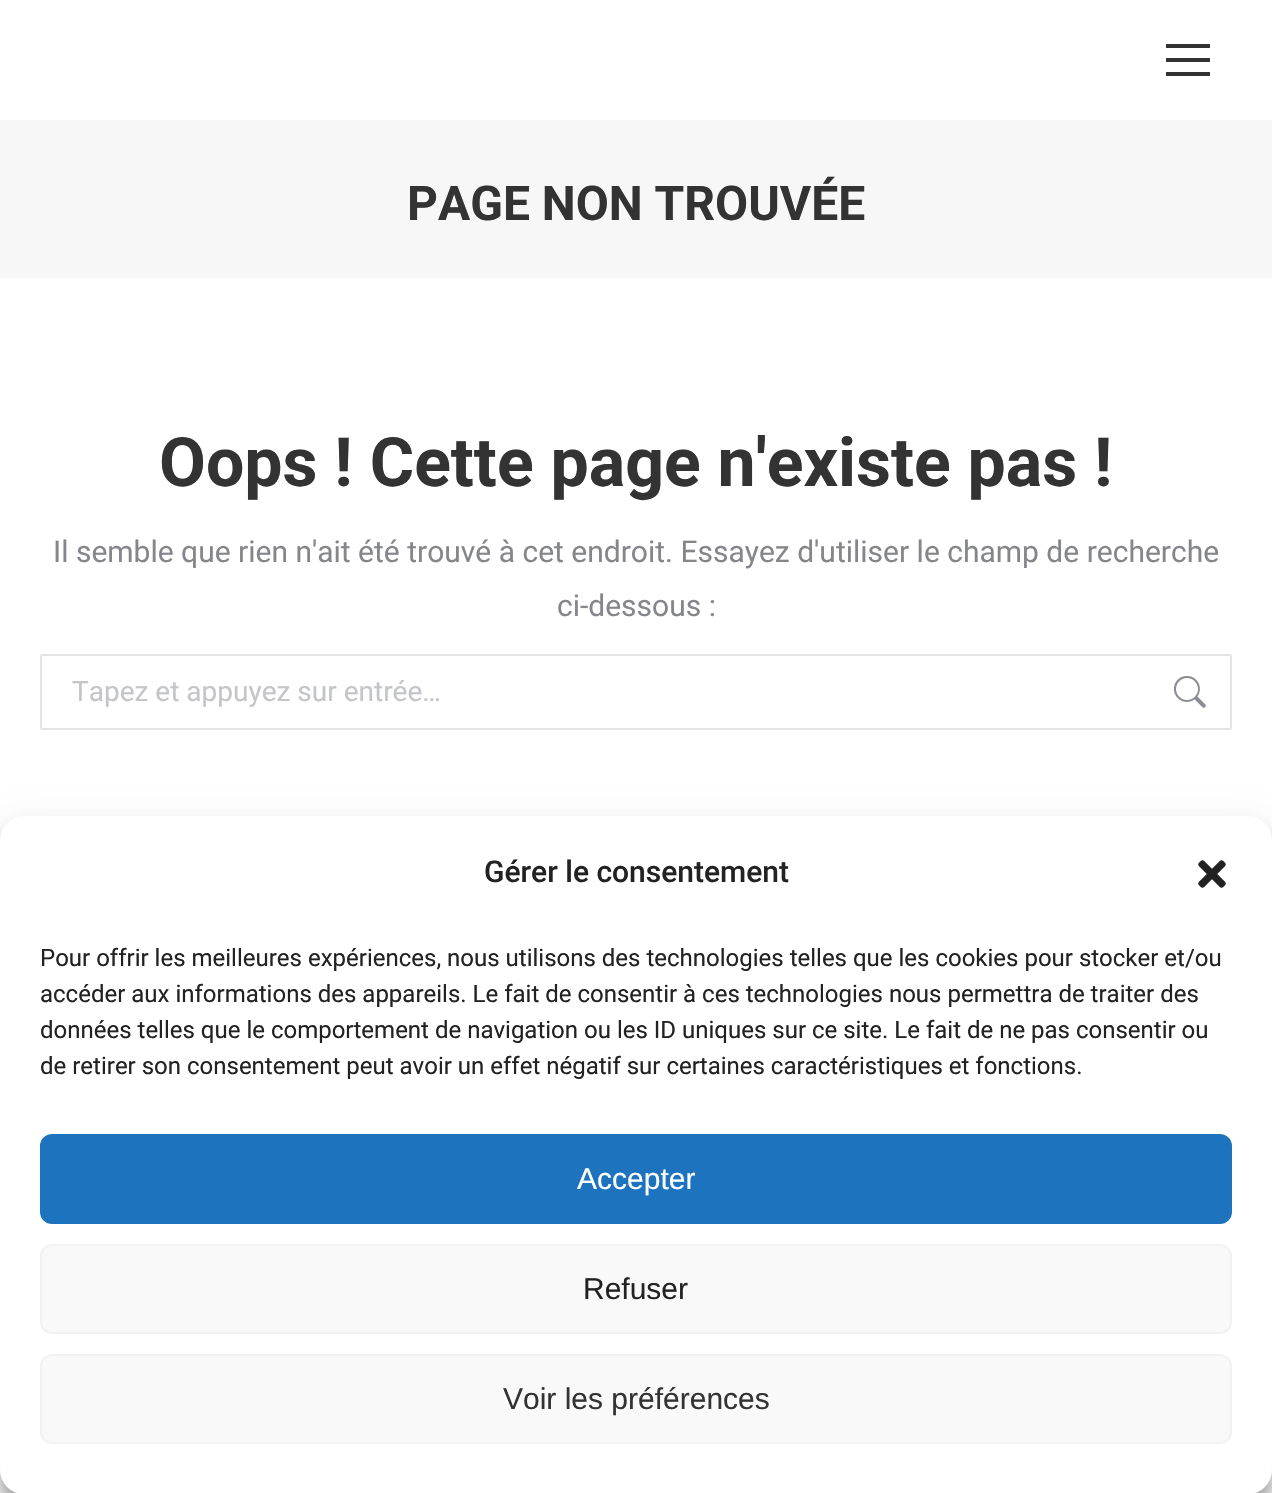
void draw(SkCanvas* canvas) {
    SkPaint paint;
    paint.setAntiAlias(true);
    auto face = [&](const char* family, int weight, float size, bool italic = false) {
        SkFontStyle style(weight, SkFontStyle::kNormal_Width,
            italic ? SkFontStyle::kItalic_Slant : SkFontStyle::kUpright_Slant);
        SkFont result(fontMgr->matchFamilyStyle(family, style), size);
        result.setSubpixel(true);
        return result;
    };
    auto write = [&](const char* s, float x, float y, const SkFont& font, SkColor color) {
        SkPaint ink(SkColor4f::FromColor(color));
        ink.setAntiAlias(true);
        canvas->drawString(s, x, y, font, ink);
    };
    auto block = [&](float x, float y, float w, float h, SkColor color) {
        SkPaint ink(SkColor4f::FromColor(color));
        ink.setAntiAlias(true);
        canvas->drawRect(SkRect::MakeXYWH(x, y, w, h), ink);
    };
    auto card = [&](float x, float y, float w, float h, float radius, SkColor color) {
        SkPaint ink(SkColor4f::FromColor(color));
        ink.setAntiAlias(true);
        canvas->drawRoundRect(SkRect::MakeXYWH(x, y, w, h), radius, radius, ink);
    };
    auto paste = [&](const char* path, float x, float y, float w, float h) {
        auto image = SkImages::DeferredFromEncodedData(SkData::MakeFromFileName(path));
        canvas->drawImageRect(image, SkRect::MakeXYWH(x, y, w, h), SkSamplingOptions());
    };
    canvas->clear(SK_ColorWHITE);
    block(1166, 44, 44, 4, SkColorSetRGB(51, 51, 51));
    block(1166, 58, 44, 4, SkColorSetRGB(51, 51, 51));
    block(1166, 72, 44, 4, SkColorSetRGB(51, 51, 51));
    block(0, 120, 1272, 158, SkColorSetRGB(247, 247, 247));
    auto kFont1 = face("Roboto", 700, 48);
    write("PAGE NON TROUVÉE", 407, 220, kFont1, SkColorSetRGB(51, 51, 51));
    auto kFont2 = face("Roboto", 700, 68);
    write("Oops ! Cette page n'existe pas !", 159, 486, kFont2, SkColorSetRGB(51, 51, 51));
    auto kFont3 = face("Roboto", 400, 30);
    write("Il semble que rien n'ait été trouvé à cet endroit. Essayez d'utiliser le champ de recherche", 53, 562, kFont3, SkColorSetRGB(133, 134, 140));
    write("ci-dessous :", 557, 616, kFont3, SkColorSetRGB(133, 134, 140));
    paint.setStyle(SkPaint::kStroke_Style);
    paint.setStrokeWidth(2);
    paint.setColor(SkColorSetRGB(229, 229, 229));
    canvas->drawRoundRect(SkRect::MakeXYWH(41, 655, 1190, 74), 1, 1, paint);
    auto kFont4 = face("Roboto", 400, 28);
    write("Tapez et appuyez sur entrée…", 72, 701, kFont4, SkColorSetRGB(196, 197, 201));
    paste("pic1.png", 1174, 676, 32, 32);
    paint.setStyle(SkPaint::kFill_Style);
    paint.setColor(SkColorSetARGB(59, 0, 0, 0));
    paint.setMaskFilter(SkMaskFilter::MakeBlur(kNormal_SkBlurStyle, 6));
    canvas->drawRoundRect(SkRect::MakeXYWH(0, 828, 1272, 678), 24, 24, paint);
    paint.setMaskFilter(nullptr);
    paint.setColor(SkColorSetARGB(48, 0, 0, 0));
    paint.setMaskFilter(SkMaskFilter::MakeBlur(kNormal_SkBlurStyle, 20));
    canvas->drawRoundRect(SkRect::MakeXYWH(0, 836, 1272, 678), 24, 24, paint);
    paint.setMaskFilter(nullptr);
    card(0, 816, 1272, 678, 24, SK_ColorWHITE);
    auto kFont5 = face("Roboto", 500, 30);
    write("Gérer le consentement", 484, 882, kFont5, SkColorSetRGB(34, 34, 34));
    paste("pic2.png", 1198, 860, 28, 28);
    auto kFont6 = face("Roboto", 400, 24);
    write("Pour offrir les meilleures expériences, nous utilisons des technologies telles que les cookies pour stocker et/ou", 40, 966, kFont6, SkColorSetRGB(34, 34, 34));
    write("accéder aux informations des appareils. Le fait de consentir à ces technologies nous permettra de traiter des", 40, 1002, kFont6, SkColorSetRGB(34, 34, 34));
    write("données telles que le comportement de navigation ou les ID uniques sur ce site. Le fait de ne pas consentir ou", 40, 1038, kFont6, SkColorSetRGB(34, 34, 34));
    write("de retirer son consentement peut avoir un effet négatif sur certaines caractéristiques et fonctions.", 40, 1074, kFont6, SkColorSetRGB(34, 34, 34));
    paint.setColor(SkColorSetRGB(30, 115, 190));
    canvas->drawRoundRect(SkRect::MakeXYWH(41, 1135, 1190, 88), 11, 11, paint);
    paint.setStyle(SkPaint::kStroke_Style);
    canvas->drawRoundRect(SkRect::MakeXYWH(41, 1135, 1190, 88), 11, 11, paint);
    auto kFont7 = face("Liberation Sans", 400, 30);
    write("Accepter", 577, 1189, kFont7, SK_ColorWHITE);
    paint.setStyle(SkPaint::kFill_Style);
    paint.setColor(SkColorSetRGB(249, 249, 249));
    canvas->drawRoundRect(SkRect::MakeXYWH(41, 1245, 1190, 88), 11, 11, paint);
    paint.setStyle(SkPaint::kStroke_Style);
    paint.setColor(SkColorSetRGB(242, 242, 242));
    canvas->drawRoundRect(SkRect::MakeXYWH(41, 1245, 1190, 88), 11, 11, paint);
    write("Refuser", 583, 1299, kFont7, SkColorSetRGB(34, 34, 34));
    paint.setStyle(SkPaint::kFill_Style);
    paint.setColor(SkColorSetRGB(249, 249, 249));
    canvas->drawRoundRect(SkRect::MakeXYWH(41, 1355, 1190, 88), 11, 11, paint);
    paint.setStyle(SkPaint::kStroke_Style);
    paint.setColor(SkColorSetRGB(242, 242, 242));
    canvas->drawRoundRect(SkRect::MakeXYWH(41, 1355, 1190, 88), 11, 11, paint);
    write("Voir les préférences", 503, 1409, kFont7, SkColorSetRGB(51, 51, 51));
}
